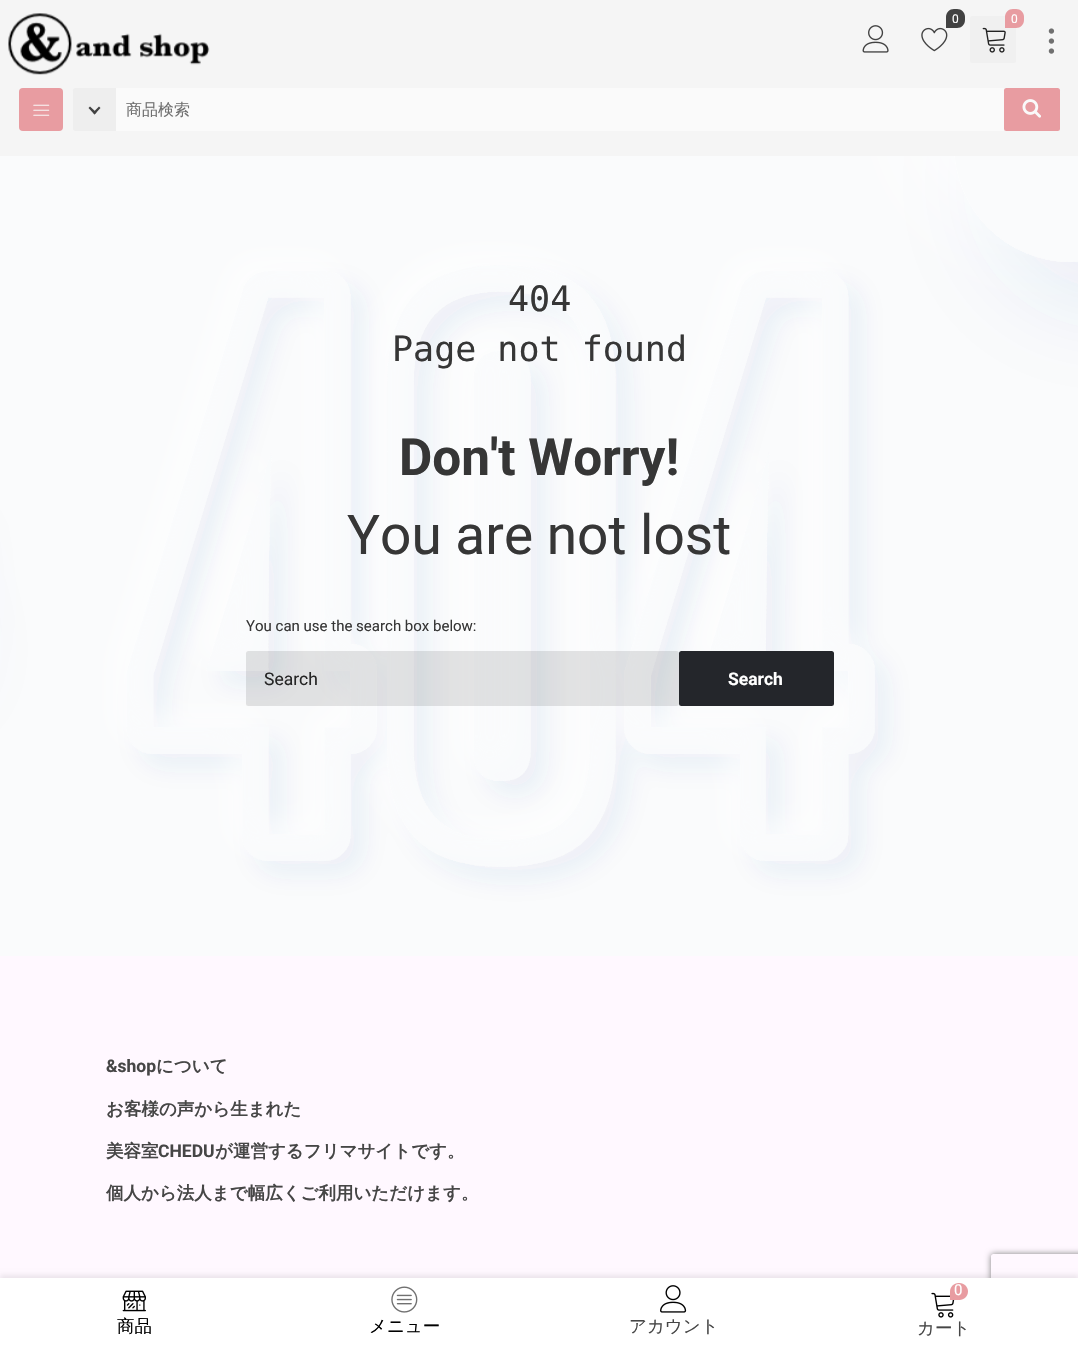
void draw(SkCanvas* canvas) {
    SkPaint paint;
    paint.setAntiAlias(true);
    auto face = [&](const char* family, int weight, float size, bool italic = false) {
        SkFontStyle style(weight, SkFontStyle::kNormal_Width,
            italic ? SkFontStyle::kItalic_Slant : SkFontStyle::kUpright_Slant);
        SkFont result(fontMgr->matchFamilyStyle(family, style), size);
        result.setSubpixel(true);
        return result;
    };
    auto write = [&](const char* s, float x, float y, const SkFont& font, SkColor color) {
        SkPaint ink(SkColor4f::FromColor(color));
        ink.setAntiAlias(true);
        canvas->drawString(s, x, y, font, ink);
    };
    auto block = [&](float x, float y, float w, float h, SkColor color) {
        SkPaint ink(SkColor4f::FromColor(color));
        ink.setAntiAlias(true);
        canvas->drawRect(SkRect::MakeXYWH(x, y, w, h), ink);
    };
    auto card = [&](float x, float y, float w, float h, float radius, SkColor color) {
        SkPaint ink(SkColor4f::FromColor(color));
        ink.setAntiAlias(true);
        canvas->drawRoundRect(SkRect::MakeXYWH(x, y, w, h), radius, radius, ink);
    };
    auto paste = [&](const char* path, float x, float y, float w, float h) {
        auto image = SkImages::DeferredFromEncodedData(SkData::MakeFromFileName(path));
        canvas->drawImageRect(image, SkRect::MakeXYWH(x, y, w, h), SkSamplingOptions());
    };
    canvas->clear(SK_ColorWHITE);
    block(0, 0, 1078, 156, SkColorSetRGB(245, 245, 245));
    paste("pic1.png", 8, 13, 202, 62);
    paste("pic2.png", 921, 27, 27, 25);
    paint.setColor(SkColorSetRGB(66, 66, 66));
    canvas->drawPath(SkPathBuilder().moveTo(954, 9).lineTo(957, 9).cubicTo(961.5f, 9, 965, 12.5f, 965, 17).lineTo(965, 20).cubicTo(965, 24.5f, 961.5f, 28, 957, 28).lineTo(946, 28).lineTo(946, 17).cubicTo(946, 12.5f, 949.5f, 9, 954, 9).close().detach(), paint);
    auto kFont1 = face("Roboto", 400, 12);
    write("0", 952, 23, kFont1, SK_ColorWHITE);
    card(970, 16, 46, 47, 2.5f, SkColorSetRGB(240, 240, 240));
    paste("pic3.png", 982, 27, 24, 26);
    paint.setColor(SkColorSetRGB(232, 156, 161));
    canvas->drawPath(SkPathBuilder().moveTo(1013, 9).lineTo(1016, 9).cubicTo(1020.5f, 9, 1024, 12.5f, 1024, 17).lineTo(1024, 20).cubicTo(1024, 24.5f, 1020.5f, 28, 1016, 28).lineTo(1005, 28).lineTo(1005, 17).cubicTo(1005, 12.5f, 1008.5f, 9, 1013, 9).close().detach(), paint);
    write("0", 1011, 23, kFont1, SK_ColorWHITE);
    paste("pic4.png", 862, 25, 27, 28);
    paste("pic5.png", 1048, 28, 7, 6);
    paste("pic5.png", 1048, 38, 7, 6);
    paste("pic5.png", 1048, 48, 7, 6);
    card(19, 88, 44, 43, 4, SkColorSetRGB(232, 156, 161));
    paste("pic6.png", 33, 104, 17, 12);
    paint.setColor(SkColorSetRGB(238, 238, 238));
    canvas->drawPath(SkPathBuilder().moveTo(75.5f, 88).lineTo(116, 88).lineTo(116, 131).lineTo(75.5f, 131).cubicTo(74, 131, 73, 130, 73, 128.5f).lineTo(73, 90.5f).cubicTo(73, 89, 74, 88, 75.5f, 88).close().detach(), paint);
    paint.setColor(SkColorSetRGB(66, 66, 66));
    canvas->drawPath(SkPathBuilder().moveTo(99, 106.5f).lineTo(100.5f, 108).lineTo(94.5f, 114.5f).lineTo(93, 112.5f).close().detach(), paint);
    canvas->drawPath(SkPathBuilder().moveTo(90, 106.5f).lineTo(96.5f, 112.5f).lineTo(94.5f, 114.5f).lineTo(88.5f, 108).close().detach(), paint);
    block(116, 88, 888, 43, SkColorSetRGB(250, 250, 250));
    auto kFont2 = face("WenQuanYi Zen Hei", 500, 16);
    write("商品検索", 126, 115, kFont2, SkColorSetRGB(112, 112, 112));
    card(1004, 88, 56, 43, 2.5f, SkColorSetRGB(232, 156, 161));
    paste("pic7.png", 1022, 99, 19, 19);
    paste("pic8.png", 0, 156, 1078, 800);
    auto kFont3 = face("DejaVu Sans Mono", 400, 35);
    write("404", 508, 311, kFont3, SkColorSetRGB(54, 54, 54));
    write("Page not found", 392, 361, kFont3, SkColorSetRGB(54, 54, 54));
    auto kFont4 = face("Roboto", 700, 51.25f);
    write("Don't Worry!", 399, 475, kFont4, SkColorSetRGB(54, 54, 54));
    auto kFont5 = face("Roboto", 400, 55);
    write("You are not lost", 347, 554, kFont5, SkColorSetRGB(54, 54, 54));
    auto kFont6 = face("Roboto", 400, 15);
    write("You can use the search box below:", 246, 631, kFont6, SkColorSetRGB(54, 54, 54));
    card(246, 651, 433, 55, 2.5f, SkColorSetARGB(26, 0, 0, 0));
    auto kFont7 = face("Roboto", 400, 17.5f);
    write("Search", 264, 685, kFont7, SkColorSetRGB(38, 38, 38));
    paint.setColor(SkColorSetRGB(36, 38, 43));
    canvas->drawRoundRect(SkRect::MakeXYWH(680.5f, 652.5f, 152, 52), 1, 1, paint);
    paint.setStyle(SkPaint::kStroke_Style);
    paint.setStrokeWidth(3);
    canvas->drawRoundRect(SkRect::MakeXYWH(680.5f, 652.5f, 152, 52), 1, 1, paint);
    auto kFont8 = face("Roboto", 700, 17.5f);
    write("Search", 728, 685, kFont8, SK_ColorWHITE);
    block(0, 956, 1078, 322, SkColorSetRGB(255, 248, 255));
    write("&shop", 106, 1072, kFont8, SkColorSetRGB(70, 70, 70));
    auto kFont9 = face("WenQuanYi Zen Hei", 700, 17.5f);
    write("について", 156, 1072, kFont9, SkColorSetRGB(70, 70, 70));
    write("お客様の声から生まれた", 106, 1115, kFont9, SkColorSetRGB(70, 70, 70));
    write("美容室", 106, 1157, kFont9, SkColorSetRGB(70, 70, 70));
    write("CHEDU", 158, 1157, kFont8, SkColorSetRGB(70, 70, 70));
    write("が運営するフリマサイトです。", 215, 1157, kFont9, SkColorSetRGB(70, 70, 70));
    write("個人から法人まで幅広くご利用いただけます。", 106, 1199, kFont9, SkColorSetRGB(70, 70, 70));
    paint.setStyle(SkPaint::kFill_Style);
    paint.setColor(SkColorSetARGB(20, 0, 0, 0));
    paint.setMaskFilter(SkMaskFilter::MakeBlur(kNormal_SkBlurStyle, 2.5f));
    canvas->drawRect(SkRect::MakeXYWH(0, 1275, 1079, 69), paint);
    paint.setMaskFilter(nullptr);
    canvas->save();
    canvas->clipPath(SkPathBuilder(SkPathFillType::kEvenOdd).moveTo(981, 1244).lineTo(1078, 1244).lineTo(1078, 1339).lineTo(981, 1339).close().moveTo(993.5f, 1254).lineTo(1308.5f, 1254).cubicTo(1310, 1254, 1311, 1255, 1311, 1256.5f).lineTo(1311, 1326.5f).cubicTo(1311, 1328, 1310, 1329, 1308.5f, 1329).lineTo(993.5f, 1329).cubicTo(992, 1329, 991, 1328, 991, 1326.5f).lineTo(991, 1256.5f).cubicTo(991, 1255, 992, 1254, 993.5f, 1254).close().detach(), true);
    paint.setColor(SkColorSetRGB(128, 128, 128));
    paint.setMaskFilter(SkMaskFilter::MakeBlur(kNormal_SkBlurStyle, 3));
    canvas->drawRoundRect(SkRect::MakeXYWH(991, 1254, 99, 75), 2.5f, 2.5f, paint);
    paint.setMaskFilter(nullptr);
    canvas->restore();
    block(0, 1278, 1078, 68, SK_ColorWHITE);
    paste("pic9.png", 122, 1290, 24, 22);
    auto kFont10 = face("WenQuanYi Zen Hei", 500, 17.5f);
    write("商品", 117, 1332, kFont10, SK_ColorBLACK);
    paste("pic10.png", 391, 1286, 27, 27);
    write("メニュー", 369, 1332, kFont10, SK_ColorBLACK);
    paste("pic11.png", 660, 1285, 27, 28);
    write("アカウント", 629, 1332, kFont10, SkColorSetRGB(70, 70, 70));
    paste("pic12.png", 931, 1292, 24, 26);
    paint.setColor(SkColorSetRGB(232, 156, 161));
    canvas->drawPath(SkPathBuilder().moveTo(958.5f, 1283).lineTo(959.5f, 1283).cubicTo(964, 1283, 968, 1287, 968, 1291.5f).cubicTo(968, 1296, 964, 1300, 959.5f, 1300).lineTo(950, 1300).lineTo(950, 1291.5f).cubicTo(950, 1287, 954, 1283, 958.5f, 1283).close().detach(), paint);
    write("0", 954, 1295, kFont6, SK_ColorWHITE);
    write("カート", 917, 1334, kFont10, SkColorSetRGB(70, 70, 70));
}
